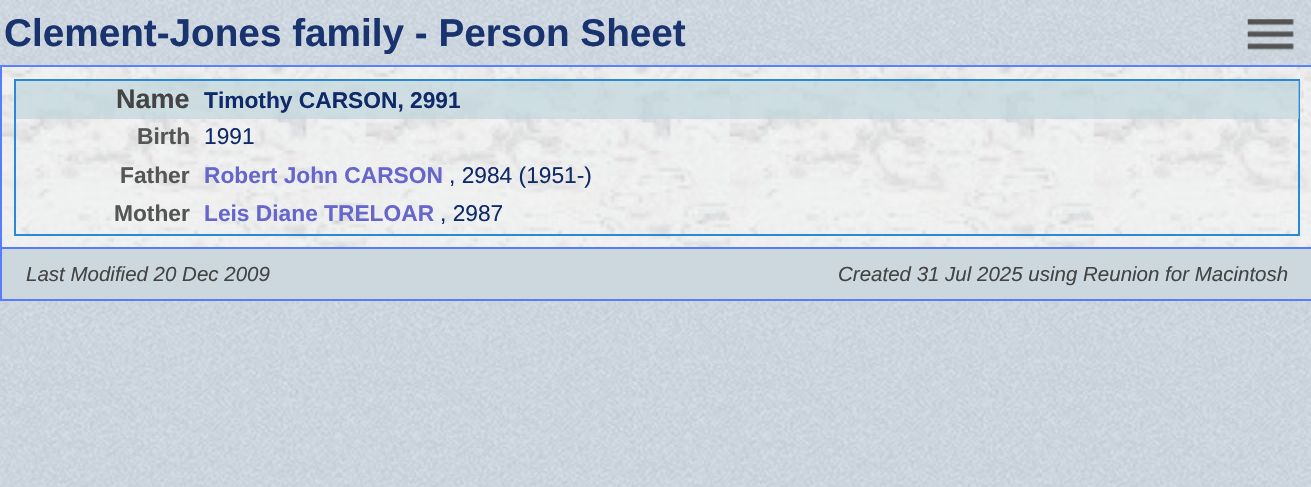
void draw(SkCanvas* canvas) {
    SkPaint paint;
    paint.setAntiAlias(true);
    auto face = [&](const char* family, int weight, float size, bool italic = false) {
        SkFontStyle style(weight, SkFontStyle::kNormal_Width,
            italic ? SkFontStyle::kItalic_Slant : SkFontStyle::kUpright_Slant);
        SkFont result(fontMgr->matchFamilyStyle(family, style), size);
        result.setSubpixel(true);
        return result;
    };
    auto write = [&](const char* s, float x, float y, const SkFont& font, SkColor color) {
        SkPaint ink(SkColor4f::FromColor(color));
        ink.setAntiAlias(true);
        canvas->drawString(s, x, y, font, ink);
    };
    auto block = [&](float x, float y, float w, float h, SkColor color) {
        SkPaint ink(SkColor4f::FromColor(color));
        ink.setAntiAlias(true);
        canvas->drawRect(SkRect::MakeXYWH(x, y, w, h), ink);
    };
    auto paste = [&](const char* path, float x, float y, float w, float h) {
        auto image = SkImages::DeferredFromEncodedData(SkData::MakeFromFileName(path));
        canvas->drawImageRect(image, SkRect::MakeXYWH(x, y, w, h), SkSamplingOptions());
    };
    canvas->clear(SK_ColorWHITE);
    paste("pic1.png", 0, 0, 1311, 487);
    paste("pic5.png", 0, 64, 1311, 183);
    paint.setStyle(SkPaint::kStroke_Style);
    paint.setStrokeWidth(2);
    paint.setColor(SkColorSetRGB(86, 126, 252));
    canvas->drawRect(SkRect::MakeXYWH(1, 66, 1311, 234), paint);
    paste("pic2.png", 0, 0, 1311, 67);
    block(0, 65, 1311, 2, SkColorSetARGB(242, 86, 126, 252));
    auto kFont1 = face("Liberation Sans", 700, 38.7f);
    write("Clement-Jones family - Person Sheet", 4, 46, kFont1, SkColorSetRGB(25, 51, 111));
    paste("pic3.png", 1230, 0, 81, 61);
    paste("pic4.png", 1247, 19, 47, 32);
    paint.setColor(SkColorSetRGB(41, 137, 211));
    canvas->drawRect(SkRect::MakeXYWH(15, 80, 1284, 155), paint);
    block(16, 81, 1283, 38, SkColorSetARGB(179, 191, 214, 221));
    auto kFont2 = face("Liberation Sans", 700, 27);
    write("Name", 116, 108, kFont2, SkColorSetRGB(68, 68, 68));
    auto kFont3 = face("Liberation Sans", 700, 22.75f);
    write("Timothy CARSON, 2991", 204, 108, kFont3, SkColorSetRGB(16, 42, 105));
    write("Birth", 137, 144, kFont3, SkColorSetRGB(85, 85, 85));
    auto kFont4 = face("Liberation Sans", 400, 22.75f);
    write("1991", 204, 144, kFont4, SkColorSetRGB(16, 42, 105));
    write("Father", 120, 183, kFont3, SkColorSetRGB(85, 85, 85));
    write("Robert John CARSON", 204, 183, kFont3, SkColorSetRGB(102, 102, 204));
    write(", 2984 (1951-)", 449, 183, kFont4, SkColorSetRGB(16, 42, 105));
    write("Mother", 114, 221, kFont3, SkColorSetRGB(85, 85, 85));
    write("Leis Diane TRELOAR", 204, 221, kFont3, SkColorSetRGB(102, 102, 204));
    write(", 2987", 440, 221, kFont4, SkColorSetRGB(16, 42, 105));
    block(2, 249, 1309, 50, SkColorSetRGB(205, 216, 222));
    block(2, 247, 1309, 2, SkColorSetRGB(86, 126, 252));
    auto kFont5 = face("Liberation Sans", 400, 20.5f, true);
    write("Last Modified 20 Dec 2009", 26, 281, kFont5, SkColorSetRGB(68, 68, 68));
    write("Created 31 Jul 2025 using Reunion for Macintosh", 838, 281, kFont5, SkColorSetRGB(68, 68, 68));
}
